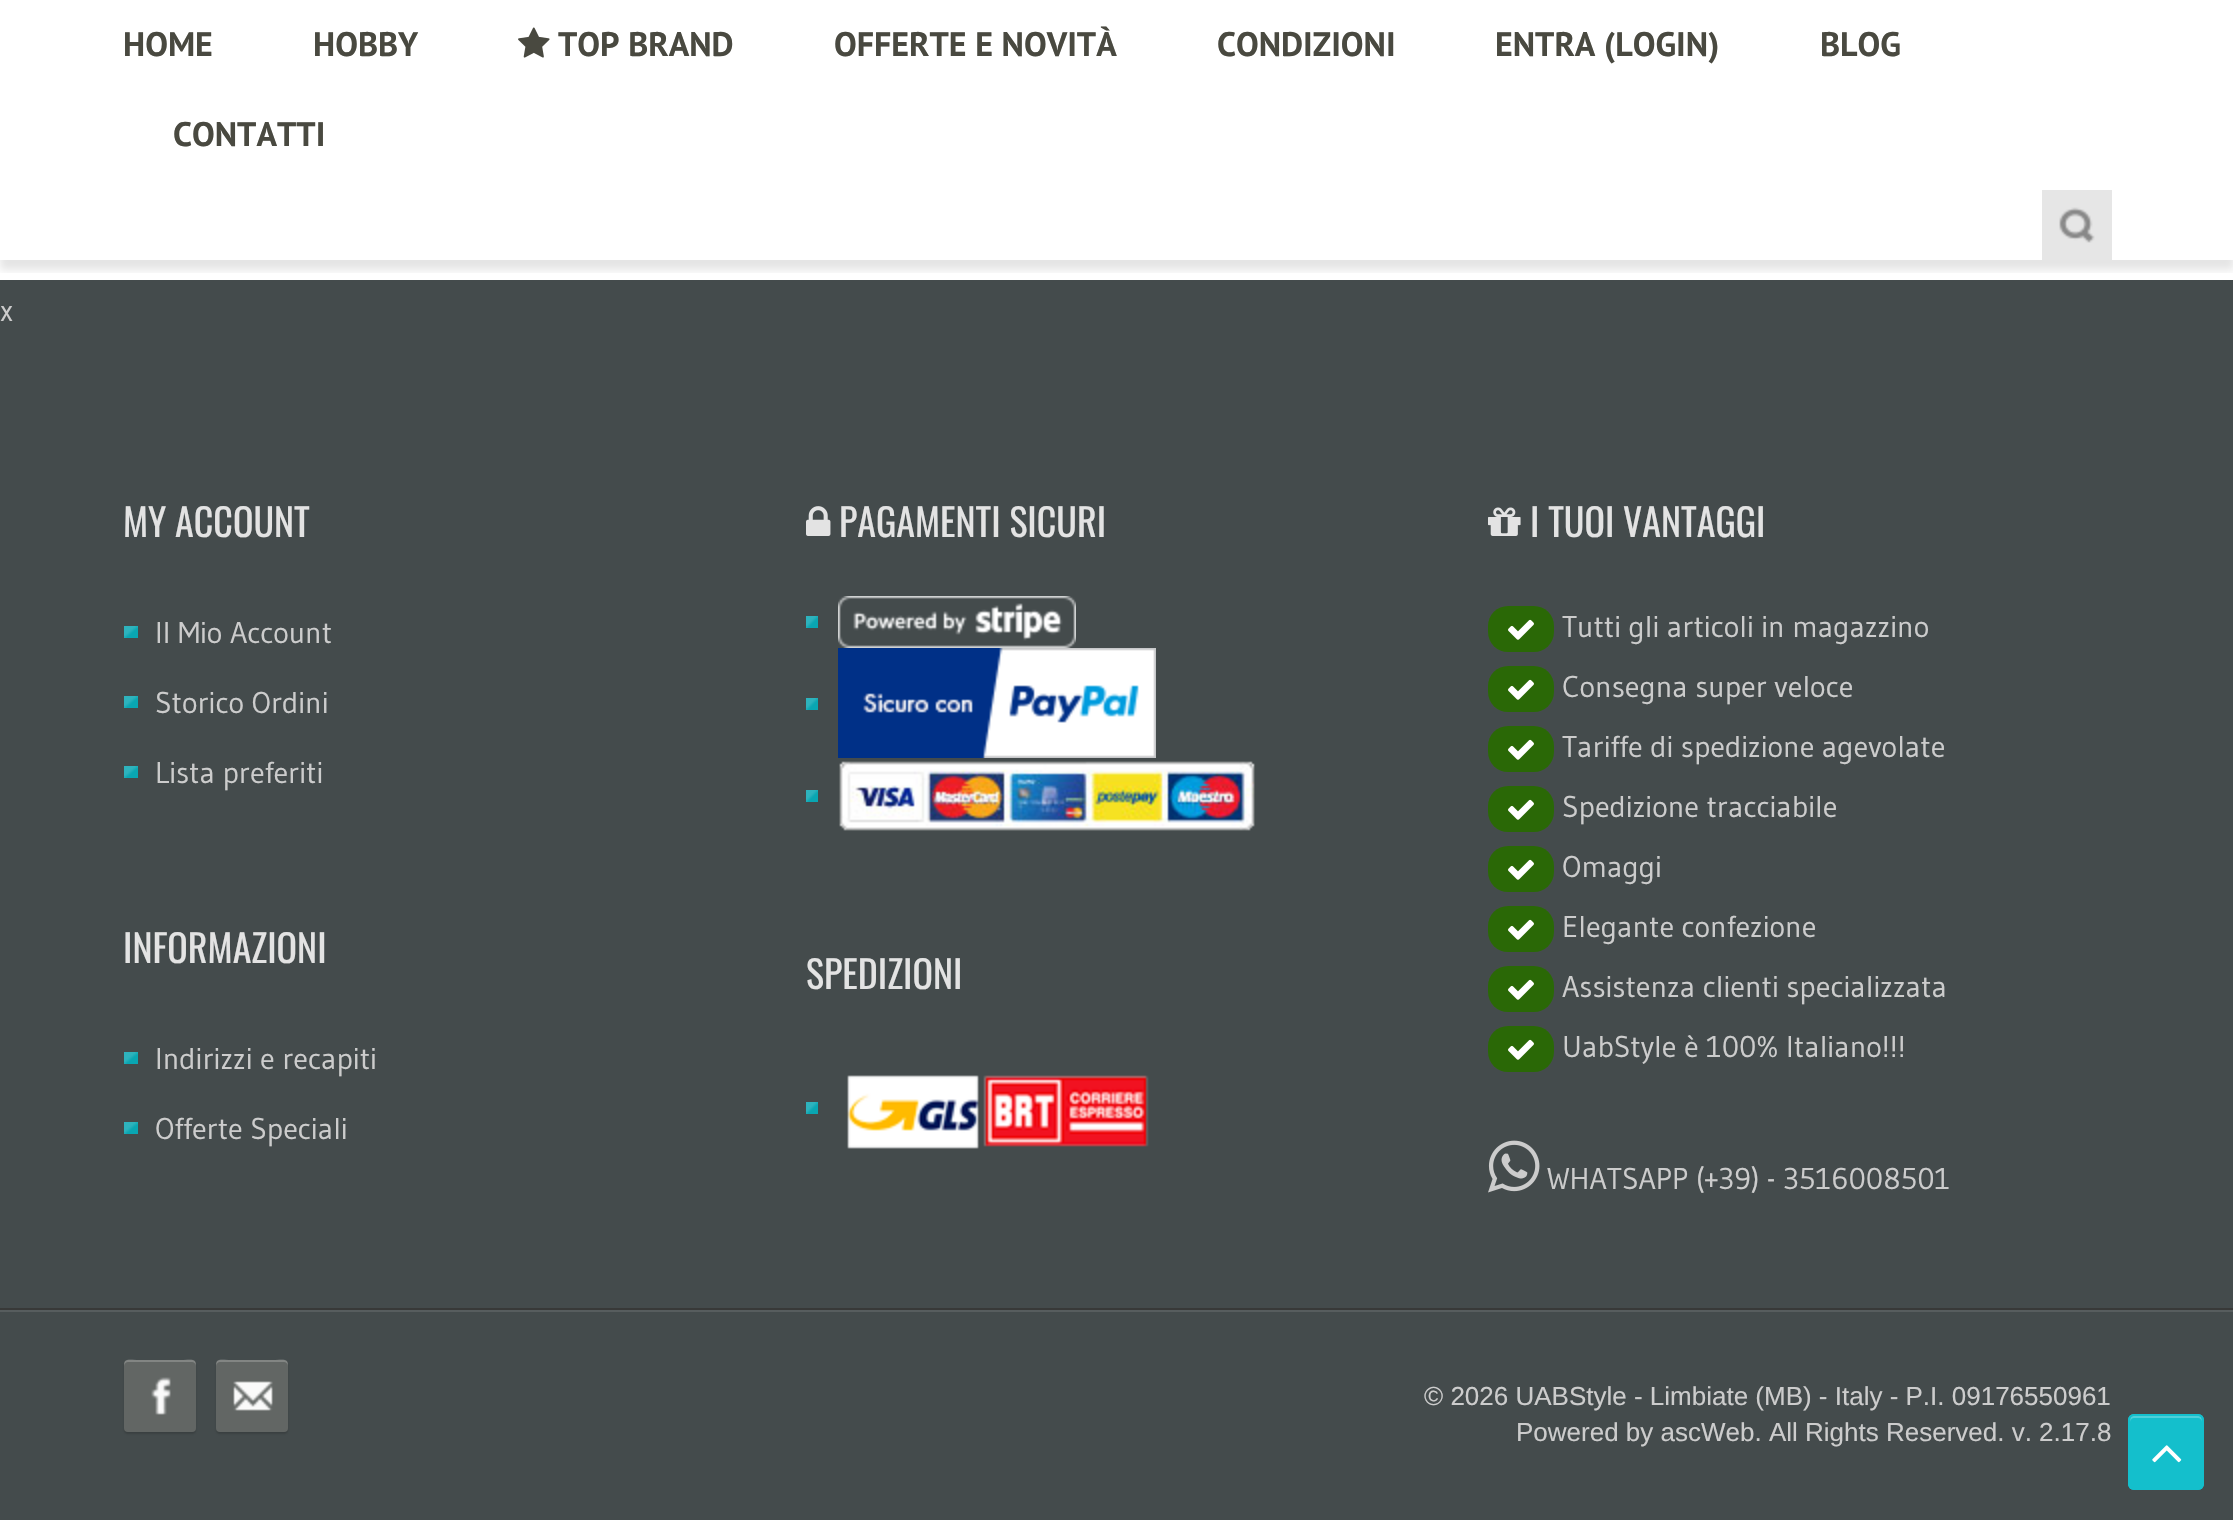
void draw(SkCanvas* canvas) {
    SkPaint paint;
    paint.setAntiAlias(true);
    auto face = [&](const char* family, int weight, float size, bool italic = false) {
        SkFontStyle style(weight, SkFontStyle::kNormal_Width,
            italic ? SkFontStyle::kItalic_Slant : SkFontStyle::kUpright_Slant);
        SkFont result(fontMgr->matchFamilyStyle(family, style), size);
        result.setSubpixel(true);
        return result;
    };
    auto write = [&](const char* s, float x, float y, const SkFont& font, SkColor color) {
        SkPaint ink(SkColor4f::FromColor(color));
        ink.setAntiAlias(true);
        canvas->drawString(s, x, y, font, ink);
    };
    auto block = [&](float x, float y, float w, float h, SkColor color) {
        SkPaint ink(SkColor4f::FromColor(color));
        ink.setAntiAlias(true);
        canvas->drawRect(SkRect::MakeXYWH(x, y, w, h), ink);
    };
    auto card = [&](float x, float y, float w, float h, float radius, SkColor color) {
        SkPaint ink(SkColor4f::FromColor(color));
        ink.setAntiAlias(true);
        canvas->drawRoundRect(SkRect::MakeXYWH(x, y, w, h), radius, radius, ink);
    };
    auto paste = [&](const char* path, float x, float y, float w, float h) {
        auto image = SkImages::DeferredFromEncodedData(SkData::MakeFromFileName(path));
        canvas->drawImageRect(image, SkRect::MakeXYWH(x, y, w, h), SkSamplingOptions());
    };
    canvas->clear(SK_ColorWHITE);
    block(0, 280, 2233, 1240, SkColorSetRGB(68, 75, 76));
    canvas->save();
    canvas->clipRect(SkRect::MakeXYWH(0, 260, 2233, 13));
    paint.setColor(SkColorSetARGB(26, 0, 0, 0));
    paint.setMaskFilter(SkMaskFilter::MakeBlur(kNormal_SkBlurStyle, 4));
    canvas->drawRect(SkRect::MakeXYWH(0, 10, 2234, 260), paint);
    paint.setMaskFilter(nullptr);
    canvas->restore();
    auto kFont1 = face("PT Sans", 700, 34);
    write("HOME", 123, 56, kFont1, SkColorSetRGB(73, 73, 64));
    write("HOBBY", 313, 56, kFont1, SkColorSetRGB(73, 73, 64));
    paste("pic1.png", 518, 27, 32, 31);
    write("TOP BRAND", 558, 56, kFont1, SkColorSetRGB(73, 73, 64));
    write("OFFERTE E NOVITÀ", 834, 56, kFont1, SkColorSetRGB(73, 73, 64));
    write("CONDIZIONI", 1217, 56, kFont1, SkColorSetRGB(73, 73, 64));
    write("ENTRA (LOGIN)", 1495, 56, kFont1, SkColorSetRGB(73, 73, 64));
    write("BLOG", 1820, 56, kFont1, SkColorSetRGB(73, 73, 64));
    write("CONTATTI", 173, 146, kFont1, SkColorSetRGB(73, 73, 64));
    block(2042, 190, 70, 70, SkColorSetRGB(230, 230, 230));
    paste("pic2.png", 2059, 207, 36, 36);
    auto kFont2 = face("Gudea", 400, 30);
    write("x", 0, 321, kFont2, SkColorSetRGB(204, 204, 204));
    auto kFont3 = face("Oswald", 400, 38);
    write("MY ACCOUNT", 123, 537, kFont3, SkColorSetRGB(227, 227, 227));
    paste("pic3.png", 124, 626, 14, 12);
    write("Il Mio Account", 155, 643, kFont2, SkColorSetRGB(204, 204, 204));
    paste("pic3.png", 124, 696, 14, 12);
    write("Storico Ordini", 155, 713, kFont2, SkColorSetRGB(204, 204, 204));
    paste("pic3.png", 124, 766, 14, 12);
    write("Lista preferiti", 155, 783, kFont2, SkColorSetRGB(204, 204, 204));
    write("INFORMAZIONI", 123, 963, kFont3, SkColorSetRGB(227, 227, 227));
    paste("pic3.png", 124, 1052, 14, 12);
    write("Indirizzi e recapiti", 155, 1069, kFont2, SkColorSetRGB(204, 204, 204));
    paste("pic3.png", 124, 1122, 14, 12);
    write("Offerte Speciali", 155, 1139, kFont2, SkColorSetRGB(204, 204, 204));
    paste("pic4.png", 806, 506, 25, 30);
    write("PAGAMENTI SICURI", 839, 537, kFont3, SkColorSetRGB(227, 227, 227));
    paste("pic5.png", 806, 616, 12, 12);
    paste("pic6.png", 838, 596, 238, 52);
    paste("pic5.png", 806, 698, 12, 12);
    paste("pic7.png", 838, 648, 318, 110);
    paste("pic5.png", 806, 790, 12, 12);
    paste("pic8.png", 839, 761, 416, 70);
    write("SPEDIZIONI", 806, 989, kFont3, SkColorSetRGB(227, 227, 227));
    paste("pic5.png", 806, 1102, 12, 12);
    paste("pic9.png", 847, 1075, 302, 74);
    paste("pic10.png", 1488, 507, 33, 29);
    write("I TUOI VANTAGGI", 1530, 537, kFont3, SkColorSetRGB(227, 227, 227));
    card(1488, 606, 66, 46, 20, SkColorSetRGB(42, 104, 6));
    paste("pic11.png", 1508, 619, 26, 21);
    write("Tutti gli articoli in magazzino", 1562, 637, kFont2, SkColorSetRGB(204, 204, 204));
    card(1488, 666, 66, 46, 20, SkColorSetRGB(42, 104, 6));
    paste("pic11.png", 1508, 679, 26, 21);
    write("Consegna super veloce", 1562, 697, kFont2, SkColorSetRGB(204, 204, 204));
    card(1488, 726, 66, 46, 20, SkColorSetRGB(42, 104, 6));
    paste("pic11.png", 1508, 739, 26, 21);
    write("Tariffe di spedizione agevolate", 1562, 757, kFont2, SkColorSetRGB(204, 204, 204));
    card(1488, 786, 66, 46, 20, SkColorSetRGB(42, 104, 6));
    paste("pic11.png", 1508, 799, 26, 21);
    write("Spedizione tracciabile", 1562, 817, kFont2, SkColorSetRGB(204, 204, 204));
    card(1488, 846, 66, 46, 20, SkColorSetRGB(42, 104, 6));
    paste("pic11.png", 1508, 859, 26, 21);
    write("Omaggi", 1562, 877, kFont2, SkColorSetRGB(204, 204, 204));
    card(1488, 906, 66, 46, 20, SkColorSetRGB(42, 104, 6));
    paste("pic11.png", 1508, 919, 26, 21);
    write("Elegante confezione", 1562, 937, kFont2, SkColorSetRGB(204, 204, 204));
    card(1488, 966, 66, 46, 20, SkColorSetRGB(42, 104, 6));
    paste("pic11.png", 1508, 979, 26, 21);
    write("Assistenza clienti specializzata", 1562, 997, kFont2, SkColorSetRGB(204, 204, 204));
    card(1488, 1026, 66, 46, 20, SkColorSetRGB(42, 104, 6));
    paste("pic11.png", 1508, 1039, 26, 21);
    write("UabStyle è 100% Italiano!!!", 1562, 1057, kFont2, SkColorSetRGB(204, 204, 204));
    paste("pic12.png", 1488, 1140, 52, 53);
    write("WHATSAPP (+39) - 3516008501", 1547, 1189, kFont2, SkColorSetRGB(204, 204, 204));
    block(0, 1310, 2233, 2, SkColorSetRGB(87, 93, 94));
    block(0, 1308, 2233, 2, SkColorSetRGB(56, 57, 56));
    paint.setColor(SkColorSetARGB(38, 0, 0, 0));
    paint.setMaskFilter(SkMaskFilter::MakeBlur(kNormal_SkBlurStyle, 1));
    canvas->drawRoundRect(SkRect::MakeXYWH(124, 1362, 72, 72), 4, 4, paint);
    paint.setMaskFilter(nullptr);
    card(124, 1360, 72, 72, 4, SkColorSetRGB(98, 102, 100));
    paste("pic13.png", 151, 1377, 20, 38);
    paint.setColor(SkColorSetARGB(51, 255, 255, 255));
    canvas->drawPath(SkPathBuilder().moveTo(128, 1362).lineTo(192, 1362).cubicTo(194, 1362, 196, 1364, 196, 1366).cubicTo(196, 1357, 189, 1360, 181, 1360).lineTo(139, 1360).cubicTo(131, 1360, 124, 1357, 124, 1366).cubicTo(124, 1364, 126, 1362, 128, 1362).close().detach(), paint);
    paint.setColor(SkColorSetARGB(38, 0, 0, 0));
    paint.setMaskFilter(SkMaskFilter::MakeBlur(kNormal_SkBlurStyle, 1));
    canvas->drawRoundRect(SkRect::MakeXYWH(216, 1362, 72, 72), 4, 4, paint);
    paint.setMaskFilter(nullptr);
    card(216, 1360, 72, 72, 4, SkColorSetRGB(98, 102, 100));
    paste("pic14.png", 233, 1381, 40, 30);
    paint.setColor(SkColorSetARGB(51, 255, 255, 255));
    canvas->drawPath(SkPathBuilder().moveTo(220, 1362).lineTo(284, 1362).cubicTo(286, 1362, 288, 1364, 288, 1366).cubicTo(288, 1357, 281, 1360, 273, 1360).lineTo(231, 1360).cubicTo(223, 1360, 216, 1357, 216, 1366).cubicTo(216, 1364, 218, 1362, 220, 1362).close().detach(), paint);
    auto kFont4 = face("Liberation Sans", 400, 26);
    write("© 2026 UABStyle - Limbiate (MB) - Italy - P.I. 09176550961", 1424, 1405, kFont4, SkColorSetRGB(204, 204, 204));
    write("Powered by ascWeb. All Rights Reserved. v. 2.17.8", 1516, 1441, kFont4, SkColorSetRGB(204, 204, 204));
    card(2128, 1414, 76, 76, 6, SkColorSetRGB(20, 191, 204));
    paint.setColor(SkColorSetRGB(79, 207, 217));
    canvas->drawPath(SkPathBuilder().moveTo(2134, 1418).lineTo(2198, 1418).cubicTo(2200, 1418, 2202, 1420, 2202, 1422).cubicTo(2202, 1413, 2195, 1416, 2187, 1416).lineTo(2145, 1416).cubicTo(2137, 1416, 2130, 1413, 2130, 1422).cubicTo(2130, 1420, 2132, 1418, 2134, 1418).close().detach(), paint);
    paint.setStyle(SkPaint::kStroke_Style);
    paint.setStrokeWidth(2);
    paint.setColor(SkColorSetRGB(20, 191, 204));
    canvas->drawRoundRect(SkRect::MakeXYWH(2129, 1415, 74, 74), 5, 5, paint);
    paste("pic15.png", 2152, 1445, 30, 18);
}
